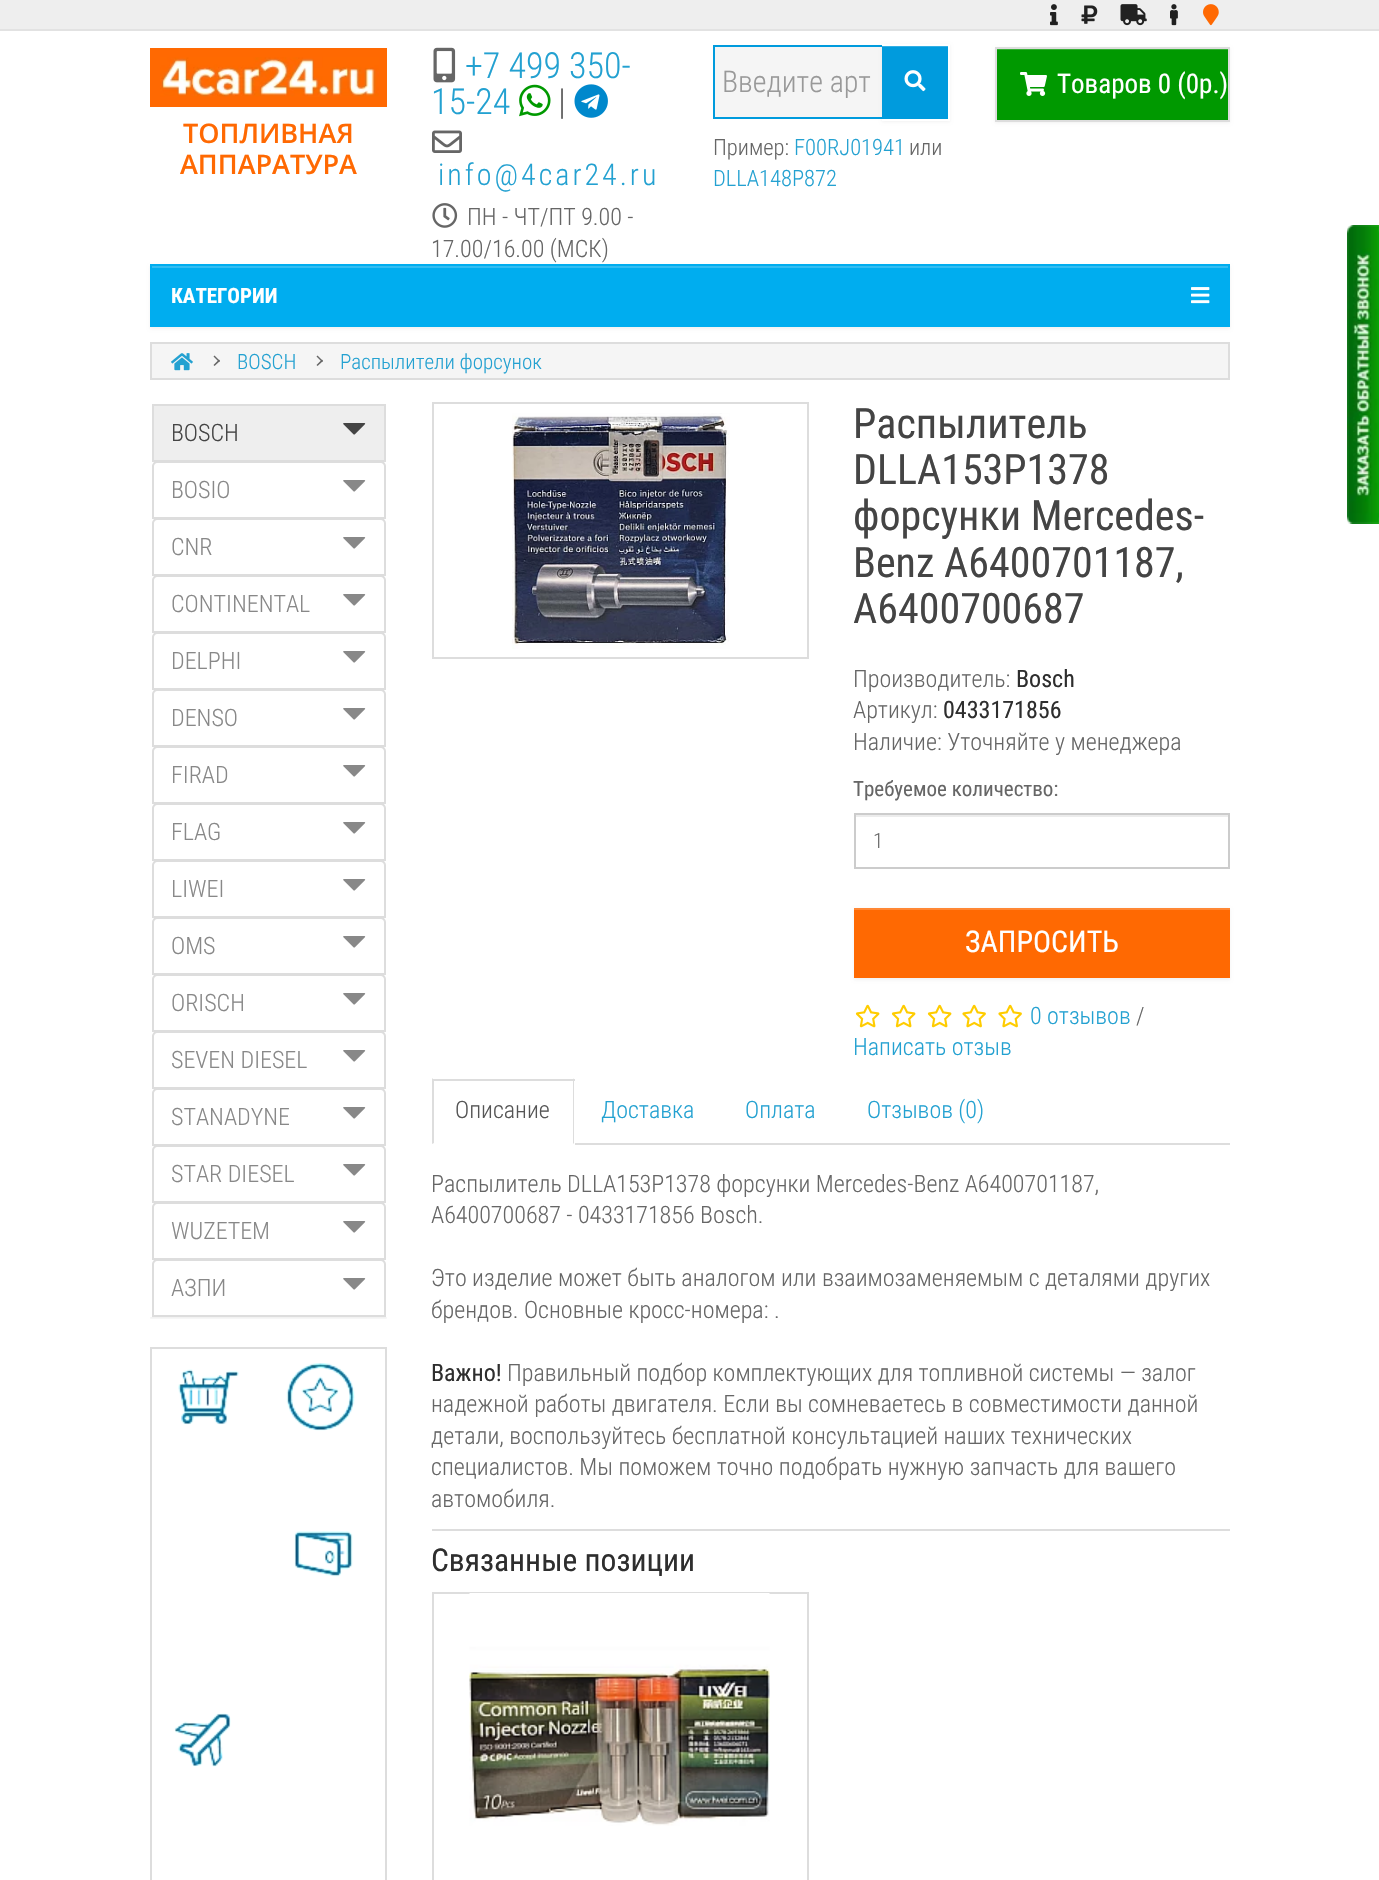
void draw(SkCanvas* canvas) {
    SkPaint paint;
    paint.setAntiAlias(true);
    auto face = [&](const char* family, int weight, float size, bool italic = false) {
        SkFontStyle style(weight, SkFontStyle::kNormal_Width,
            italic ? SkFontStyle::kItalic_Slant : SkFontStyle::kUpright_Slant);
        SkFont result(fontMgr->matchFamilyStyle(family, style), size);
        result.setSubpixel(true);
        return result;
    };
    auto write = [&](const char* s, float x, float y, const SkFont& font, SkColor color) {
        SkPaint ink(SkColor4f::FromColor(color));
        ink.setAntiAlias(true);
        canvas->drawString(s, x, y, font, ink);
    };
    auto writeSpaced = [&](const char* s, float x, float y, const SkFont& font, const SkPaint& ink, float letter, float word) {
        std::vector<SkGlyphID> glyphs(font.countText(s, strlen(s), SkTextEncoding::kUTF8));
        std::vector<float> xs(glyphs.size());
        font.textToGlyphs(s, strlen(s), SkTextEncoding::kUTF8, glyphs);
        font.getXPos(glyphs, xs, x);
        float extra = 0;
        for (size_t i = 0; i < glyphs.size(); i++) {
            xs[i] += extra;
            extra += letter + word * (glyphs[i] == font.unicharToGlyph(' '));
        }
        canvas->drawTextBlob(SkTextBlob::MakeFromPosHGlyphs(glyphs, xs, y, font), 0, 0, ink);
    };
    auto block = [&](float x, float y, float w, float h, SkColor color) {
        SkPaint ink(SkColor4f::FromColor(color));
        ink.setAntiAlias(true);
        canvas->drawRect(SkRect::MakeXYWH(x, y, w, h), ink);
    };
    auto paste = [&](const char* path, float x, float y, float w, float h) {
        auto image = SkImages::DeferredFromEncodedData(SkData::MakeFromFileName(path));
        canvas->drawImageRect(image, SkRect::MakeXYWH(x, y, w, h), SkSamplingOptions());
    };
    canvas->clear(SK_ColorWHITE);
    block(0, 0, 1379, 29, SkColorSetRGB(238, 238, 238));
    block(0, 29, 1379, 2, SkColorSetRGB(226, 226, 226));
    paste("pic1.png", 1050, 4, 8, 22);
    paste("pic2.png", 1081, 5, 17, 19);
    paste("pic3.png", 1120, 4, 27, 22);
    paste("pic4.png", 1170, 4, 8, 22);
    paste("pic5.png", 1203, 4, 16, 22);
    paste("pic6.png", 433, 47, 23, 36);
    auto kFont1 = face("Roboto Condensed", 300, 36);
    write("+7 499 350-", 465, 78, kFont1, SkColorSetRGB(35, 161, 209));
    write("15-24", 431, 114, kFont1, SkColorSetRGB(35, 161, 209));
    paste("pic7.png", 519, 84, 32, 33);
    write("|", 558, 114, kFont1, SkColorSetRGB(102, 102, 102));
    paste("pic8.png", 574, 84, 34, 34);
    paste("pic9.png", 432, 130, 30, 23);
    auto kFont2 = face("Roboto Condensed", 300, 30);
    paint.setColor(SkColorSetRGB(35, 161, 209));
    writeSpaced("info@4car24.ru", 438, 185, kFont2, paint, 3, 0);
    paste("pic10.png", 432, 203, 26, 25);
    auto kFont3 = face("Roboto Condensed", 300, 24);
    write("ПН - ЧТ/ПТ 9.00 -", 467, 225, kFont3, SkColorSetRGB(102, 102, 102));
    write("17.00/16.00 (МСК)", 431, 257, kFont3, SkColorSetRGB(102, 102, 102));
    block(715, 47, 167, 70, SkColorSetRGB(245, 245, 245));
    block(713, 45, 171, 2, SkColorSetRGB(0, 155, 221));
    block(713, 117, 171, 2, SkColorSetRGB(0, 155, 221));
    block(713, 45, 2, 74, SkColorSetRGB(0, 155, 221));
    write("Введите арт", 722, 92, kFont2, SkColorSetRGB(153, 153, 153));
    paint.setColor(SkColorSetARGB(13, 0, 0, 0));
    paint.setMaskFilter(SkMaskFilter::MakeBlur(kNormal_SkBlurStyle, 1.5f));
    canvas->drawRect(SkRect::MakeXYWH(882, 45, 68, 77), paint);
    paint.setMaskFilter(nullptr);
    block(882, 47, 66, 72, SkColorSetRGB(0, 155, 221));
    block(882, 46, 66, 1, SkColorSetRGB(51, 175, 228));
    block(882, 44, 68, 2, SK_ColorWHITE);
    block(948, 44, 2, 76, SK_ColorWHITE);
    block(882, 119, 68, 2, SK_ColorWHITE);
    paste("pic11.png", 904, 70, 22, 22);
    auto kFont4 = face("Roboto Condensed", 300, 22.5f);
    write("Пример:", 713, 155, kFont4, SkColorSetRGB(102, 102, 102));
    write("F00RJ01941", 794, 155, kFont4, SkColorSetRGB(35, 161, 209));
    write("или", 909, 155, kFont4, SkColorSetRGB(102, 102, 102));
    write("DLLA148P872", 713, 186, kFont4, SkColorSetRGB(35, 161, 209));
    paint.setMaskFilter(SkMaskFilter::MakeBlur(kNormal_SkBlurStyle, 1.5f));
    canvas->drawRect(SkRect::MakeXYWH(995, 48, 235, 75), paint);
    paint.setMaskFilter(nullptr);
    block(997, 50, 231, 70, SkColorSetRGB(0, 153, 0));
    block(996, 49, 233, 1, SkColorSetRGB(51, 173, 51));
    paint.setStyle(SkPaint::kStroke_Style);
    paint.setStrokeWidth(2);
    paint.setColor(SkColorSetRGB(221, 221, 221));
    canvas->drawRect(SkRect::MakeXYWH(996, 48, 233, 73), paint);
    paste("pic12.png", 1020, 72, 27, 24);
    auto kFont5 = face("Roboto Condensed", 400, 27);
    write("Товаров 0 (0р.)", 1057, 93, kFont5, SK_ColorWHITE);
    block(150, 48, 237, 59, SkColorSetRGB(255, 105, 2));
    paste("pic13.png", 160, 57, 219, 40);
    auto kFont6 = face("Open Sans", 600, 27);
    write("ТОПЛИВНАЯ", 183, 143, kFont6, SkColorSetRGB(255, 105, 2));
    write("АППАРАТУРА", 180, 174, kFont6, SkColorSetRGB(255, 105, 2));
    paint.setStyle(SkPaint::kFill_Style);
    paint.setColor(SkColorSetARGB(13, 0, 0, 0));
    paint.setMaskFilter(SkMaskFilter::MakeBlur(kNormal_SkBlurStyle, 1.5f));
    canvas->drawRect(SkRect::MakeXYWH(150, 266, 1080, 63), paint);
    paint.setMaskFilter(nullptr);
    block(152, 268, 1076, 57, SkColorSetRGB(0, 173, 239));
    block(152, 266, 1077, 2, SkColorSetRGB(51, 189, 242));
    paint.setStyle(SkPaint::kStroke_Style);
    paint.setColor(SkColorSetRGB(0, 173, 239));
    canvas->drawRect(SkRect::MakeXYWH(151, 265, 1078, 61), paint);
    auto kFont7 = face("Roboto Condensed", 700, 21);
    write("КАТЕГОРИИ", 171, 303, kFont7, SK_ColorWHITE);
    paste("pic14.png", 1191, 287, 19, 17);
    paint.setStyle(SkPaint::kFill_Style);
    paint.setColor(SkColorSetRGB(245, 245, 245));
    canvas->drawRect(SkRect::MakeXYWH(151, 343, 1078, 36), paint);
    paint.setStyle(SkPaint::kStroke_Style);
    paint.setColor(SkColorSetRGB(221, 221, 221));
    canvas->drawRect(SkRect::MakeXYWH(151, 343, 1078, 36), paint);
    paste("pic15.png", 171, 353, 22, 18);
    paint.setStyle(SkPaint::kFill_Style);
    paint.setColor(SkColorSetRGB(102, 102, 102));
    canvas->drawPath(SkPathBuilder().moveTo(213.5f, 356.5f).lineTo(214.5f, 355.5f).lineTo(220, 361).lineTo(219, 362).close().detach(), paint);
    canvas->drawPath(SkPathBuilder().moveTo(213.5f, 365).lineTo(219, 359.5f).lineTo(220, 361).lineTo(214.5f, 366).close().detach(), paint);
    auto kFont8 = face("Roboto Condensed", 300, 21);
    write("BOSCH", 237, 369, kFont8, SkColorSetRGB(35, 161, 209));
    canvas->drawPath(SkPathBuilder().moveTo(316.5f, 356.5f).lineTo(317.5f, 355.5f).lineTo(323, 361).lineTo(322, 362).close().detach(), paint);
    canvas->drawPath(SkPathBuilder().moveTo(316.5f, 365).lineTo(322, 359.5f).lineTo(323, 361).lineTo(317.5f, 366).close().detach(), paint);
    write("Распылители форсунок", 340, 369, kFont8, SkColorSetRGB(35, 161, 209));
    canvas->save();
    canvas->clipRect(SkRect::MakeXYWH(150, 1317, 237, 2));
    paint.setColor(SkColorSetARGB(13, 0, 0, 0));
    paint.setMaskFilter(SkMaskFilter::MakeBlur(kNormal_SkBlurStyle, 1));
    canvas->drawRect(SkRect::MakeXYWH(150, 404, 237, 915), paint);
    paint.setMaskFilter(nullptr);
    canvas->restore();
    paint.setStyle(SkPaint::kStroke_Style);
    paint.setColor(SkColorSetRGB(221, 221, 221));
    canvas->drawPath(SkPathBuilder().moveTo(157, 462).lineTo(381, 462).cubicTo(383, 462, 385, 464, 385, 466).lineTo(385, 518).lineTo(153, 518).lineTo(153, 466).cubicTo(153, 464, 155, 462, 157, 462).close().detach(), paint);
    paint.setStyle(SkPaint::kFill_Style);
    paint.setColor(SkColorSetRGB(238, 238, 238));
    canvas->drawRect(SkRect::MakeXYWH(153, 405, 232, 56), paint);
    paint.setStyle(SkPaint::kStroke_Style);
    paint.setColor(SkColorSetRGB(221, 221, 221));
    canvas->drawRect(SkRect::MakeXYWH(153, 405, 232, 56), paint);
    write("BOSCH", 171, 441, kFont3, SkColorSetRGB(68, 68, 68));
    paste("pic16.png", 343, 423, 23, 12);
    write("BOSIO", 171, 498, kFont3, SkColorSetRGB(136, 136, 136));
    paste("pic17.png", 343, 480, 23, 12);
    paint.setStyle(SkPaint::kFill_Style);
    paint.setColor(SK_ColorWHITE);
    canvas->drawPath(SkPathBuilder().moveTo(157, 519).lineTo(381, 519).cubicTo(383, 519, 385, 521, 385, 523).lineTo(385, 575).lineTo(153, 575).lineTo(153, 523).cubicTo(153, 521, 155, 519, 157, 519).close().detach(), paint);
    paint.setStyle(SkPaint::kStroke_Style);
    paint.setColor(SkColorSetRGB(221, 221, 221));
    canvas->drawPath(SkPathBuilder().moveTo(157, 519).lineTo(381, 519).cubicTo(383, 519, 385, 521, 385, 523).lineTo(385, 575).lineTo(153, 575).lineTo(153, 523).cubicTo(153, 521, 155, 519, 157, 519).close().detach(), paint);
    write("CNR", 171, 555, kFont3, SkColorSetRGB(136, 136, 136));
    paste("pic17.png", 343, 537, 23, 12);
    paint.setStyle(SkPaint::kFill_Style);
    paint.setColor(SK_ColorWHITE);
    canvas->drawPath(SkPathBuilder().moveTo(157, 576).lineTo(381, 576).cubicTo(383, 576, 385, 578, 385, 580).lineTo(385, 632).lineTo(153, 632).lineTo(153, 580).cubicTo(153, 578, 155, 576, 157, 576).close().detach(), paint);
    paint.setStyle(SkPaint::kStroke_Style);
    paint.setColor(SkColorSetRGB(221, 221, 221));
    canvas->drawPath(SkPathBuilder().moveTo(157, 576).lineTo(381, 576).cubicTo(383, 576, 385, 578, 385, 580).lineTo(385, 632).lineTo(153, 632).lineTo(153, 580).cubicTo(153, 578, 155, 576, 157, 576).close().detach(), paint);
    write("CONTINENTAL", 171, 612, kFont3, SkColorSetRGB(136, 136, 136));
    paste("pic17.png", 343, 594, 23, 12);
    paint.setStyle(SkPaint::kFill_Style);
    paint.setColor(SK_ColorWHITE);
    canvas->drawPath(SkPathBuilder().moveTo(157, 633).lineTo(381, 633).cubicTo(383, 633, 385, 635, 385, 637).lineTo(385, 689).lineTo(153, 689).lineTo(153, 637).cubicTo(153, 635, 155, 633, 157, 633).close().detach(), paint);
    paint.setStyle(SkPaint::kStroke_Style);
    paint.setColor(SkColorSetRGB(221, 221, 221));
    canvas->drawPath(SkPathBuilder().moveTo(157, 633).lineTo(381, 633).cubicTo(383, 633, 385, 635, 385, 637).lineTo(385, 689).lineTo(153, 689).lineTo(153, 637).cubicTo(153, 635, 155, 633, 157, 633).close().detach(), paint);
    write("DELPHI", 171, 669, kFont3, SkColorSetRGB(136, 136, 136));
    paste("pic17.png", 343, 651, 23, 12);
    paint.setStyle(SkPaint::kFill_Style);
    paint.setColor(SK_ColorWHITE);
    canvas->drawPath(SkPathBuilder().moveTo(157, 690).lineTo(381, 690).cubicTo(383, 690, 385, 692, 385, 694).lineTo(385, 746).lineTo(153, 746).lineTo(153, 694).cubicTo(153, 692, 155, 690, 157, 690).close().detach(), paint);
    paint.setStyle(SkPaint::kStroke_Style);
    paint.setColor(SkColorSetRGB(221, 221, 221));
    canvas->drawPath(SkPathBuilder().moveTo(157, 690).lineTo(381, 690).cubicTo(383, 690, 385, 692, 385, 694).lineTo(385, 746).lineTo(153, 746).lineTo(153, 694).cubicTo(153, 692, 155, 690, 157, 690).close().detach(), paint);
    write("DENSO", 171, 726, kFont3, SkColorSetRGB(136, 136, 136));
    paste("pic17.png", 343, 708, 23, 12);
    paint.setStyle(SkPaint::kFill_Style);
    paint.setColor(SK_ColorWHITE);
    canvas->drawPath(SkPathBuilder().moveTo(157, 747).lineTo(381, 747).cubicTo(383, 747, 385, 749, 385, 751).lineTo(385, 803).lineTo(153, 803).lineTo(153, 751).cubicTo(153, 749, 155, 747, 157, 747).close().detach(), paint);
    paint.setStyle(SkPaint::kStroke_Style);
    paint.setColor(SkColorSetRGB(221, 221, 221));
    canvas->drawPath(SkPathBuilder().moveTo(157, 747).lineTo(381, 747).cubicTo(383, 747, 385, 749, 385, 751).lineTo(385, 803).lineTo(153, 803).lineTo(153, 751).cubicTo(153, 749, 155, 747, 157, 747).close().detach(), paint);
    write("FIRAD", 171, 783, kFont3, SkColorSetRGB(136, 136, 136));
    paste("pic17.png", 343, 765, 23, 12);
    paint.setStyle(SkPaint::kFill_Style);
    paint.setColor(SK_ColorWHITE);
    canvas->drawPath(SkPathBuilder().moveTo(157, 804).lineTo(381, 804).cubicTo(383, 804, 385, 806, 385, 808).lineTo(385, 860).lineTo(153, 860).lineTo(153, 808).cubicTo(153, 806, 155, 804, 157, 804).close().detach(), paint);
    paint.setStyle(SkPaint::kStroke_Style);
    paint.setColor(SkColorSetRGB(221, 221, 221));
    canvas->drawPath(SkPathBuilder().moveTo(157, 804).lineTo(381, 804).cubicTo(383, 804, 385, 806, 385, 808).lineTo(385, 860).lineTo(153, 860).lineTo(153, 808).cubicTo(153, 806, 155, 804, 157, 804).close().detach(), paint);
    write("FLAG", 171, 840, kFont3, SkColorSetRGB(136, 136, 136));
    paste("pic17.png", 343, 822, 23, 12);
    paint.setStyle(SkPaint::kFill_Style);
    paint.setColor(SK_ColorWHITE);
    canvas->drawPath(SkPathBuilder().moveTo(157, 861).lineTo(381, 861).cubicTo(383, 861, 385, 863, 385, 865).lineTo(385, 917).lineTo(153, 917).lineTo(153, 865).cubicTo(153, 863, 155, 861, 157, 861).close().detach(), paint);
    paint.setStyle(SkPaint::kStroke_Style);
    paint.setColor(SkColorSetRGB(221, 221, 221));
    canvas->drawPath(SkPathBuilder().moveTo(157, 861).lineTo(381, 861).cubicTo(383, 861, 385, 863, 385, 865).lineTo(385, 917).lineTo(153, 917).lineTo(153, 865).cubicTo(153, 863, 155, 861, 157, 861).close().detach(), paint);
    write("LIWEI", 171, 897, kFont3, SkColorSetRGB(136, 136, 136));
    paste("pic17.png", 343, 879, 23, 12);
    paint.setStyle(SkPaint::kFill_Style);
    paint.setColor(SK_ColorWHITE);
    canvas->drawPath(SkPathBuilder().moveTo(157, 918).lineTo(381, 918).cubicTo(383, 918, 385, 920, 385, 922).lineTo(385, 974).lineTo(153, 974).lineTo(153, 922).cubicTo(153, 920, 155, 918, 157, 918).close().detach(), paint);
    paint.setStyle(SkPaint::kStroke_Style);
    paint.setColor(SkColorSetRGB(221, 221, 221));
    canvas->drawPath(SkPathBuilder().moveTo(157, 918).lineTo(381, 918).cubicTo(383, 918, 385, 920, 385, 922).lineTo(385, 974).lineTo(153, 974).lineTo(153, 922).cubicTo(153, 920, 155, 918, 157, 918).close().detach(), paint);
    write("OMS", 171, 954, kFont3, SkColorSetRGB(136, 136, 136));
    paste("pic17.png", 343, 936, 23, 12);
    paint.setStyle(SkPaint::kFill_Style);
    paint.setColor(SK_ColorWHITE);
    canvas->drawPath(SkPathBuilder().moveTo(157, 975).lineTo(381, 975).cubicTo(383, 975, 385, 977, 385, 979).lineTo(385, 1031).lineTo(153, 1031).lineTo(153, 979).cubicTo(153, 977, 155, 975, 157, 975).close().detach(), paint);
    paint.setStyle(SkPaint::kStroke_Style);
    paint.setColor(SkColorSetRGB(221, 221, 221));
    canvas->drawPath(SkPathBuilder().moveTo(157, 975).lineTo(381, 975).cubicTo(383, 975, 385, 977, 385, 979).lineTo(385, 1031).lineTo(153, 1031).lineTo(153, 979).cubicTo(153, 977, 155, 975, 157, 975).close().detach(), paint);
    write("ORISCH", 171, 1011, kFont3, SkColorSetRGB(136, 136, 136));
    paste("pic17.png", 343, 993, 23, 12);
    paint.setStyle(SkPaint::kFill_Style);
    paint.setColor(SK_ColorWHITE);
    canvas->drawPath(SkPathBuilder().moveTo(157, 1032).lineTo(381, 1032).cubicTo(383, 1032, 385, 1034, 385, 1036).lineTo(385, 1088).lineTo(153, 1088).lineTo(153, 1036).cubicTo(153, 1034, 155, 1032, 157, 1032).close().detach(), paint);
    paint.setStyle(SkPaint::kStroke_Style);
    paint.setColor(SkColorSetRGB(221, 221, 221));
    canvas->drawPath(SkPathBuilder().moveTo(157, 1032).lineTo(381, 1032).cubicTo(383, 1032, 385, 1034, 385, 1036).lineTo(385, 1088).lineTo(153, 1088).lineTo(153, 1036).cubicTo(153, 1034, 155, 1032, 157, 1032).close().detach(), paint);
    write("SEVEN DIESEL", 171, 1068, kFont3, SkColorSetRGB(136, 136, 136));
    paste("pic17.png", 343, 1050, 23, 12);
    paint.setStyle(SkPaint::kFill_Style);
    paint.setColor(SK_ColorWHITE);
    canvas->drawPath(SkPathBuilder().moveTo(157, 1089).lineTo(381, 1089).cubicTo(383, 1089, 385, 1091, 385, 1093).lineTo(385, 1145).lineTo(153, 1145).lineTo(153, 1093).cubicTo(153, 1091, 155, 1089, 157, 1089).close().detach(), paint);
    paint.setStyle(SkPaint::kStroke_Style);
    paint.setColor(SkColorSetRGB(221, 221, 221));
    canvas->drawPath(SkPathBuilder().moveTo(157, 1089).lineTo(381, 1089).cubicTo(383, 1089, 385, 1091, 385, 1093).lineTo(385, 1145).lineTo(153, 1145).lineTo(153, 1093).cubicTo(153, 1091, 155, 1089, 157, 1089).close().detach(), paint);
    write("STANADYNE", 171, 1125, kFont3, SkColorSetRGB(136, 136, 136));
    paste("pic17.png", 343, 1107, 23, 12);
    paint.setStyle(SkPaint::kFill_Style);
    paint.setColor(SK_ColorWHITE);
    canvas->drawPath(SkPathBuilder().moveTo(157, 1146).lineTo(381, 1146).cubicTo(383, 1146, 385, 1148, 385, 1150).lineTo(385, 1202).lineTo(153, 1202).lineTo(153, 1150).cubicTo(153, 1148, 155, 1146, 157, 1146).close().detach(), paint);
    paint.setStyle(SkPaint::kStroke_Style);
    paint.setColor(SkColorSetRGB(221, 221, 221));
    canvas->drawPath(SkPathBuilder().moveTo(157, 1146).lineTo(381, 1146).cubicTo(383, 1146, 385, 1148, 385, 1150).lineTo(385, 1202).lineTo(153, 1202).lineTo(153, 1150).cubicTo(153, 1148, 155, 1146, 157, 1146).close().detach(), paint);
    write("STAR DIESEL", 171, 1182, kFont3, SkColorSetRGB(136, 136, 136));
    paste("pic17.png", 343, 1164, 23, 12);
    paint.setStyle(SkPaint::kFill_Style);
    paint.setColor(SK_ColorWHITE);
    canvas->drawPath(SkPathBuilder().moveTo(157, 1203).lineTo(381, 1203).cubicTo(383, 1203, 385, 1205, 385, 1207).lineTo(385, 1259).lineTo(153, 1259).lineTo(153, 1207).cubicTo(153, 1205, 155, 1203, 157, 1203).close().detach(), paint);
    paint.setStyle(SkPaint::kStroke_Style);
    paint.setColor(SkColorSetRGB(221, 221, 221));
    canvas->drawPath(SkPathBuilder().moveTo(157, 1203).lineTo(381, 1203).cubicTo(383, 1203, 385, 1205, 385, 1207).lineTo(385, 1259).lineTo(153, 1259).lineTo(153, 1207).cubicTo(153, 1205, 155, 1203, 157, 1203).close().detach(), paint);
    write("WUZETEM", 171, 1239, kFont3, SkColorSetRGB(136, 136, 136));
    paste("pic17.png", 343, 1221, 23, 12);
    paint.setStyle(SkPaint::kFill_Style);
    paint.setColor(SK_ColorWHITE);
    canvas->drawPath(SkPathBuilder().moveTo(157, 1260).lineTo(381, 1260).cubicTo(383, 1260, 385, 1262, 385, 1264).lineTo(385, 1316).lineTo(153, 1316).lineTo(153, 1264).cubicTo(153, 1262, 155, 1260, 157, 1260).close().detach(), paint);
    paint.setStyle(SkPaint::kStroke_Style);
    paint.setColor(SkColorSetRGB(221, 221, 221));
    canvas->drawPath(SkPathBuilder().moveTo(157, 1260).lineTo(381, 1260).cubicTo(383, 1260, 385, 1262, 385, 1264).lineTo(385, 1316).lineTo(153, 1316).lineTo(153, 1264).cubicTo(153, 1262, 155, 1260, 157, 1260).close().detach(), paint);
    write("АЗПИ", 171, 1296, kFont3, SkColorSetRGB(136, 136, 136));
    paste("pic17.png", 343, 1278, 23, 12);
    canvas->drawRect(SkRect::MakeXYWH(151, 1348, 235, 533), paint);
    paste("pic18.png", 178, 1369, 61, 56);
    paste("pic19.png", 286, 1363, 69, 68);
    paste("pic20.png", 294, 1531, 59, 46);
    paste("pic21.png", 174, 1713, 57, 54);
    paste("pic22.png", 1347, 225, 32, 299);
    canvas->drawRect(SkRect::MakeXYWH(433, 403, 375, 255), paint);
    paste("pic23.png", 512, 413, 218, 236);
    auto kFont9 = face("Roboto Condensed", 400, 42);
    write("Распылитель", 853, 438, kFont9, SkColorSetRGB(68, 68, 68));
    write("DLLA153P1378", 853, 484, kFont9, SkColorSetRGB(68, 68, 68));
    write("форсунки Mercedes-", 853, 530, kFont9, SkColorSetRGB(68, 68, 68));
    write("Benz A6400701187,", 853, 577, kFont9, SkColorSetRGB(68, 68, 68));
    write("A6400700687", 853, 623, kFont9, SkColorSetRGB(68, 68, 68));
    write("Производитель:", 853, 687, kFont3, SkColorSetRGB(102, 102, 102));
    auto kFont10 = face("Roboto Condensed", 400, 24);
    write("Bosch", 1016, 687, kFont10, SkColorSetRGB(46, 46, 46));
    write("Артикул:", 853, 718, kFont3, SkColorSetRGB(102, 102, 102));
    write("0433171856", 943, 718, kFont10, SkColorSetRGB(46, 46, 46));
    write("Наличие: Уточняйте у менеджера", 853, 750, kFont3, SkColorSetRGB(102, 102, 102));
    auto kFont11 = face("Roboto Condensed", 400, 21);
    write("Требуемое количество:", 853, 796, kFont11, SkColorSetRGB(102, 102, 102));
    block(855, 815, 374, 2, SkColorSetRGB(236, 236, 236));
    paint.setColor(SkColorSetRGB(204, 204, 204));
    canvas->drawRect(SkRect::MakeXYWH(855, 814, 374, 54), paint);
    write("1", 873, 848, kFont8, SkColorSetRGB(102, 102, 102));
    paint.setStyle(SkPaint::kFill_Style);
    paint.setColor(SkColorSetARGB(13, 0, 0, 0));
    paint.setMaskFilter(SkMaskFilter::MakeBlur(kNormal_SkBlurStyle, 1.5f));
    canvas->drawRect(SkRect::MakeXYWH(854, 909, 376, 71), paint);
    paint.setMaskFilter(nullptr);
    block(854, 910, 376, 68, SkColorSetRGB(255, 105, 2));
    block(854, 908, 376, 2, SkColorSetRGB(255, 135, 53));
    auto kFont12 = face("Roboto Condensed", 400, 30);
    write("ЗАПРОСИТЬ", 965, 952, kFont12, SK_ColorWHITE);
    paste("pic24.png", 855, 1004, 25, 24);
    paste("pic24.png", 891, 1004, 25, 24);
    paste("pic24.png", 927, 1004, 25, 24);
    paste("pic25.png", 962, 1004, 24, 24);
    paste("pic25.png", 998, 1004, 24, 24);
    write("0 отзывов", 1030, 1024, kFont3, SkColorSetRGB(35, 161, 209));
    write("/", 1136, 1024, kFont3, SkColorSetRGB(102, 102, 102));
    write("Написать отзыв", 853, 1055, kFont3, SkColorSetRGB(35, 161, 209));
    block(575, 1143, 655, 2, SkColorSetRGB(221, 221, 221));
    block(432, 1079, 143, 2, SkColorSetRGB(221, 221, 221));
    paint.setColor(SkColorSetRGB(221, 221, 221));
    canvas->drawPath(SkPathBuilder().moveTo(574, 1078).lineTo(574, 1144).lineTo(573, 1143).lineTo(573, 1080).close().detach(), paint);
    canvas->drawPath(SkPathBuilder().moveTo(432, 1144).lineTo(432, 1078).lineTo(434, 1080).lineTo(434, 1143).close().detach(), paint);
    write("Описание", 455, 1118, kFont3, SkColorSetRGB(85, 85, 85));
    write("Доставка", 601, 1118, kFont3, SkColorSetRGB(35, 161, 209));
    write("Оплата", 745, 1118, kFont3, SkColorSetRGB(35, 161, 209));
    write("Отзывов (0)", 867, 1118, kFont3, SkColorSetRGB(35, 161, 209));
    write("Распылитель DLLA153P1378 форсунки Mercedes-Benz A6400701187,", 431, 1192, kFont3, SkColorSetRGB(102, 102, 102));
    write("A6400700687 - 0433171856 Bosch.", 431, 1223, kFont3, SkColorSetRGB(102, 102, 102));
    write("Это изделие может быть аналогом или взаимозаменяемым с деталями других", 431, 1286, kFont3, SkColorSetRGB(102, 102, 102));
    write("брендов. Основные кросс-номера: .", 431, 1318, kFont3, SkColorSetRGB(102, 102, 102));
    write("Важно!", 431, 1381, kFont10, SkColorSetRGB(46, 46, 46));
    write("Правильный подбор комплектующих для топливной системы — залог", 507, 1381, kFont3, SkColorSetRGB(102, 102, 102));
    write("надежной работы двигателя. Если вы сомневаетесь в совместимости данной", 431, 1412, kFont3, SkColorSetRGB(102, 102, 102));
    write("детали, воспользуйтесь бесплатной консультацией наших технических", 431, 1444, kFont3, SkColorSetRGB(102, 102, 102));
    write("специалистов. Мы поможем точно подобрать нужную запчасть для вашего", 431, 1475, kFont3, SkColorSetRGB(102, 102, 102));
    write("автомобиля.", 431, 1507, kFont3, SkColorSetRGB(102, 102, 102));
    block(432, 1529, 798, 2, SkColorSetRGB(221, 221, 221));
    auto kFont13 = face("Roboto Condensed", 400, 31.5f);
    write("Связанные позиции", 431, 1571, kFont13, SkColorSetRGB(46, 46, 46));
    paint.setStyle(SkPaint::kStroke_Style);
    canvas->drawRect(SkRect::MakeXYWH(433, 1593, 375, 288), paint);
    paste("pic26.png", 469, 1593, 301, 233);
}
